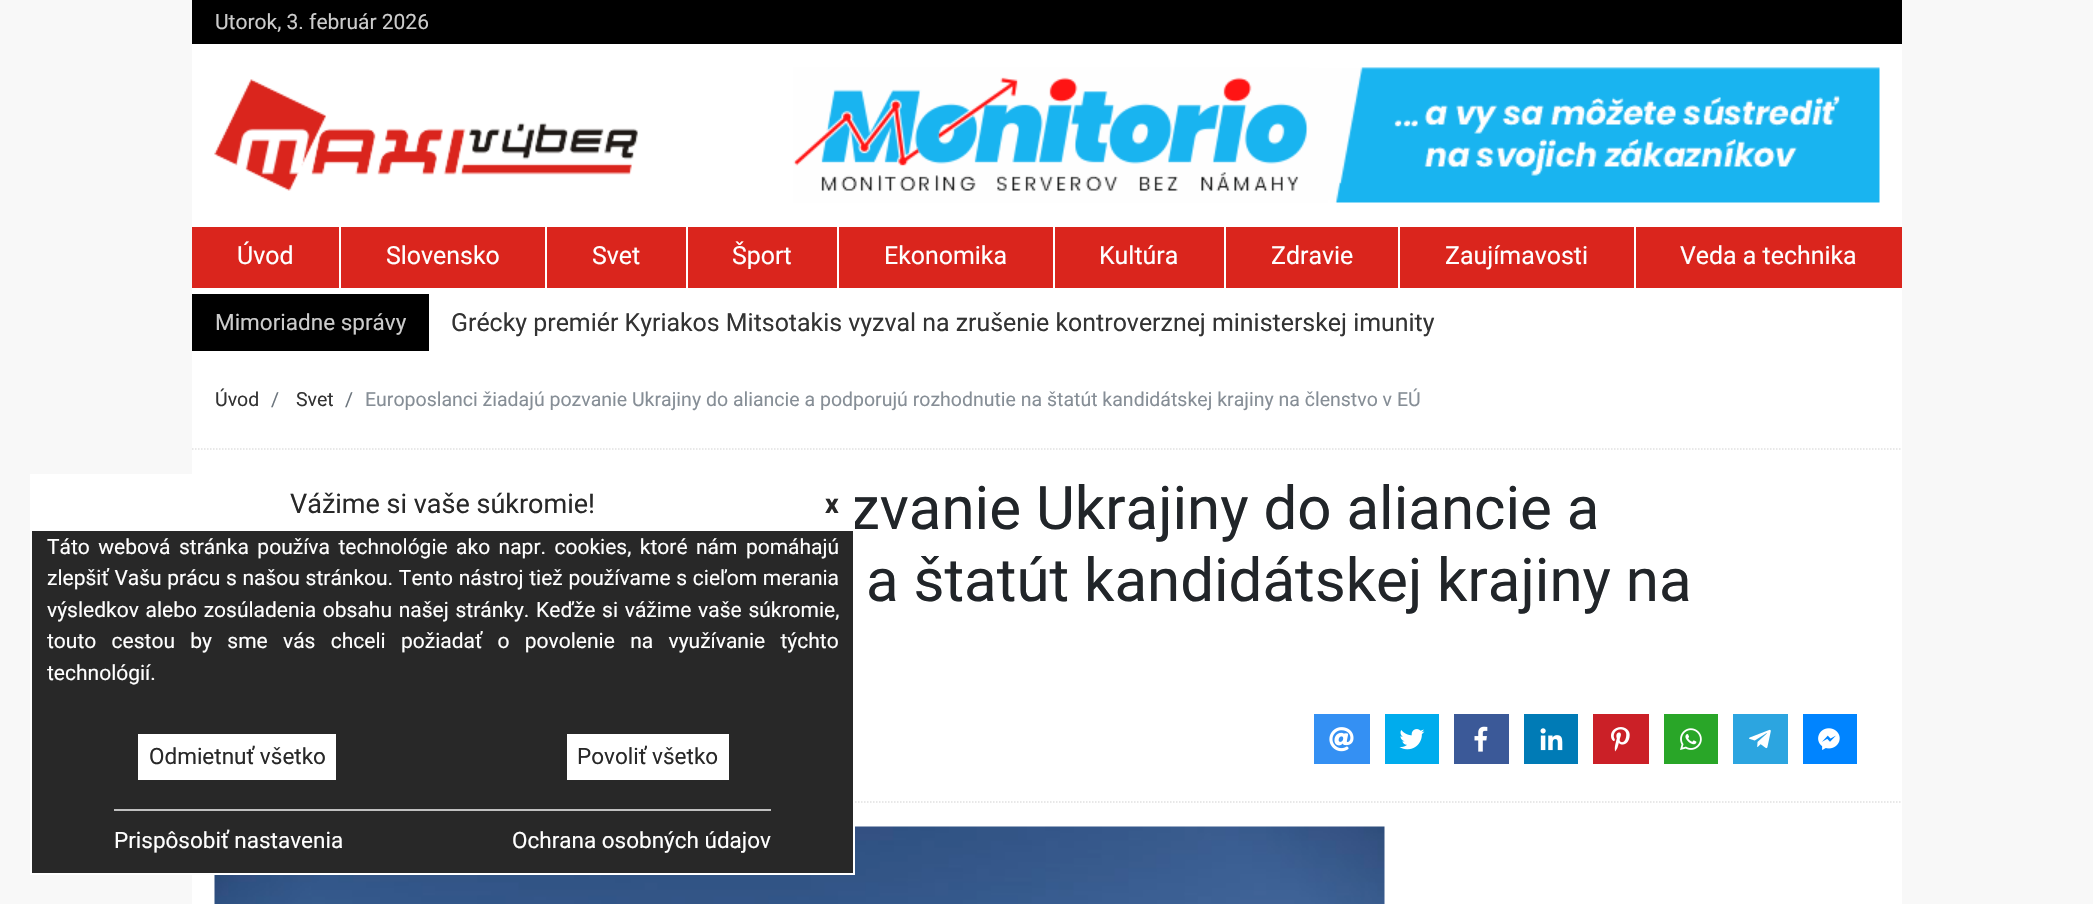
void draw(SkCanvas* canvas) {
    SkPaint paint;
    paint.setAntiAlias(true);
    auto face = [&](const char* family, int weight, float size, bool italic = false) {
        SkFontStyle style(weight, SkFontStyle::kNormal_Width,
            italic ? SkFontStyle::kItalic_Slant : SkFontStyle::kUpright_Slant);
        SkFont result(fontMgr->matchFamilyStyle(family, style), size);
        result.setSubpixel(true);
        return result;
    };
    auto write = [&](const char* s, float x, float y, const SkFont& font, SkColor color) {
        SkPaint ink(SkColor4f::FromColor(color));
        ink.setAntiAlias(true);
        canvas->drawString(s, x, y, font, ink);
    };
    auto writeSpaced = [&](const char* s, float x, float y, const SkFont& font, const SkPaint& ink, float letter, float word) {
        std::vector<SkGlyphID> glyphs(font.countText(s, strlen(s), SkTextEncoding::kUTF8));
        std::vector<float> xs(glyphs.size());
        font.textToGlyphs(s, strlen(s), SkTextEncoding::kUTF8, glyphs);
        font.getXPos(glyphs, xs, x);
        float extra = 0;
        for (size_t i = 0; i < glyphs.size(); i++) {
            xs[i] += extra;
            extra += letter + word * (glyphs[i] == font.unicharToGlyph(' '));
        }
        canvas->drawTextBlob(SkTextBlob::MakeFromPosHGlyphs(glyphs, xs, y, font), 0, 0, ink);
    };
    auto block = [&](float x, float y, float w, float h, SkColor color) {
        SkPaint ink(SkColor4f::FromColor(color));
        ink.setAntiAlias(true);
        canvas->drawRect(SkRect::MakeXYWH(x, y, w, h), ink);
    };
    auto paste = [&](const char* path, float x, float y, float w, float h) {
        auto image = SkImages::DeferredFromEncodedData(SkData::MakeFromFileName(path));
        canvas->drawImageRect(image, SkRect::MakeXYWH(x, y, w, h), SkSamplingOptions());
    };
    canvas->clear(SkColorSetRGB(248, 248, 248));
    block(192, 44, 1710, 860, SK_ColorWHITE);
    block(192, 0, 1710, 44, SK_ColorBLACK);
    auto kFont1 = face("Roboto", 400, 21);
    write("Utorok, 3. február 2026", 215, 29, kFont1, SkColorSetRGB(204, 204, 204));
    paste("pic1.png", 214, 79, 424, 112);
    paste("pic2.png", 793, 67, 1087, 136);
    block(192, 227, 1710, 61, SkColorSetRGB(218, 37, 29));
    block(339, 227, 2, 61, SK_ColorWHITE);
    auto kFont2 = face("Roboto", 400, 24.9f);
    write("Úvod", 237, 264, kFont2, SK_ColorWHITE);
    block(545, 227, 2, 61, SK_ColorWHITE);
    write("Slovensko", 386, 264, kFont2, SK_ColorWHITE);
    block(686, 227, 2, 61, SK_ColorWHITE);
    write("Svet", 592, 264, kFont2, SK_ColorWHITE);
    block(837, 227, 2, 61, SK_ColorWHITE);
    write("Šport", 732, 264, kFont2, SK_ColorWHITE);
    block(1053, 227, 2, 61, SK_ColorWHITE);
    write("Ekonomika", 884, 264, kFont2, SK_ColorWHITE);
    block(1224, 227, 2, 61, SK_ColorWHITE);
    write("Kultúra", 1099, 264, kFont2, SK_ColorWHITE);
    block(1398, 227, 2, 61, SK_ColorWHITE);
    write("Zdravie", 1271, 264, kFont2, SK_ColorWHITE);
    block(1634, 227, 2, 61, SK_ColorWHITE);
    write("Zaujímavosti", 1445, 264, kFont2, SK_ColorWHITE);
    write("Veda a technika", 1680, 264, kFont2, SK_ColorWHITE);
    block(192, 294, 237, 57, SK_ColorBLACK);
    auto kFont3 = face("Roboto", 400, 22.5f);
    write("Mimoriadne správy", 215, 330, kFont3, SkColorSetRGB(204, 204, 204));
    write("Grécky premiér Kyriakos Mitsotakis vyzval na zrušenie kontroverznej ministerskej imunity", 451, 331, kFont2, SkColorSetRGB(51, 51, 51));
    paint.setStyle(SkPaint::kStroke_Style);
    paint.setStrokeWidth(1.5f);
    paint.setColor(SkColorSetRGB(225, 225, 225));
    paint.setPathEffect(SkDashPathEffect::Make({{1.5f, 1.5f}}, 0));
    canvas->drawPath(SkPathBuilder().moveTo(192, 449).lineTo(1902, 449).detach(), paint);
    paint.setPathEffect(nullptr);
    auto kFont4 = face("Roboto", 400, 19.5f);
    write("Úvod", 215, 406, kFont4, SkColorSetRGB(51, 51, 51));
    write("/", 271, 406, kFont4, SkColorSetRGB(108, 117, 125));
    write("Svet", 296, 406, kFont4, SkColorSetRGB(51, 51, 51));
    write("/", 345, 406, kFont4, SkColorSetRGB(108, 117, 125));
    write("Europoslanci žiadajú pozvanie Ukrajiny do aliancie a podporujú rozhodnutie na štatút kandidátskej krajiny na členstvo v EÚ", 365, 406, kFont4, SkColorSetRGB(134, 142, 150));
    paint.setPathEffect(SkDashPathEffect::Make({{1.5f, 1.5f}}, 0));
    canvas->drawPath(SkPathBuilder().moveTo(192, 802).lineTo(1902, 802).detach(), paint);
    paint.setPathEffect(nullptr);
    auto kFont5 = face("Roboto", 400, 60);
    write("zvanie Ukrajiny do aliancie a", 850, 529, kFont5, SkColorSetRGB(33, 37, 41));
    write("a štatút kandidátskej krajiny na", 866, 601, kFont5, SkColorSetRGB(33, 37, 41));
    block(1314, 714, 56, 50, SkColorSetRGB(52, 144, 243));
    paste("pic3.png", 1329, 727, 25, 25);
    block(1385, 714, 54, 50, SkColorSetRGB(0, 172, 237));
    paste("pic4.png", 1399, 729, 26, 21);
    block(1454, 714, 55, 50, SkColorSetRGB(59, 89, 152));
    paste("pic5.png", 1474, 726, 14, 26);
    block(1524, 714, 54, 50, SkColorSetRGB(0, 123, 182));
    paste("pic6.png", 1540, 728, 23, 23);
    block(1593, 714, 56, 50, SkColorSetRGB(203, 32, 39));
    paste("pic7.png", 1611, 727, 19, 25);
    block(1664, 714, 54, 50, SkColorSetRGB(41, 166, 40));
    paste("pic8.png", 1680, 728, 22, 22);
    block(1733, 714, 55, 50, SkColorSetRGB(44, 165, 224));
    paste("pic9.png", 1749, 729, 22, 20);
    block(1803, 714, 54, 50, SkColorSetRGB(0, 132, 255));
    paste("pic10.png", 1818, 728, 22, 22);
    paste("pic11.png", 214, 826, 1171, 78);
    block(32, 531, 821, 342, SkColorSetRGB(40, 40, 40));
    paint.setStrokeWidth(2);
    paint.setColor(SK_ColorWHITE);
    canvas->drawRect(SkRect::MakeXYWH(31, 475, 823, 399), paint);
    block(32, 476, 821, 55, SK_ColorWHITE);
    auto kFont6 = face("Roboto", 400, 27);
    write("Vážime si vaše súkromie!", 290, 513, kFont6, SkColorSetRGB(40, 40, 40));
    auto kFont7 = face("Roboto", 700, 27);
    write("x", 825, 513, kFont7, SkColorSetRGB(40, 40, 40));
    paint.setStyle(SkPaint::kFill_Style);
    writeSpaced("Táto webová stránka používa technológie ako napr. cookies, ktoré nám pomáhajú", 47, 554, kFont1, paint, 0, 3.25f);
    writeSpaced("zlepšiť Vašu prácu s našou stránkou. Tento nástroj tiež používame s cieľom merania", 47, 585, kFont1, paint, 0, 0.5f);
    writeSpaced("výsledkov alebo zosúladenia obsahu našej stránky. Keďže si vážime vaše súkromie,", 47, 617, kFont1, paint, 0, 1.5f);
    writeSpaced("touto cestou by sme vás chceli požiadať o povolenie na využívanie týchto", 47, 648, kFont1, paint, 0, 10.1f);
    write("technológií.", 47, 680, kFont1, SK_ColorWHITE);
    block(140, 736, 194, 42, SK_ColorWHITE);
    paint.setStyle(SkPaint::kStroke_Style);
    canvas->drawRect(SkRect::MakeXYWH(139, 735, 196, 44), paint);
    write("Odmietnuť všetko", 149, 764, kFont3, SkColorSetRGB(40, 40, 40));
    block(569, 736, 158, 42, SK_ColorWHITE);
    canvas->drawRect(SkRect::MakeXYWH(568, 735, 160, 44), paint);
    write("Povoliť všetko", 577, 764, kFont3, SkColorSetRGB(40, 40, 40));
    block(114, 809, 657, 2, SkColorSetRGB(192, 192, 192));
    write("Prispôsobiť nastavenia", 114, 848, kFont3, SK_ColorWHITE);
    write("Ochrana osobných údajov", 512, 848, kFont3, SK_ColorWHITE);
}
